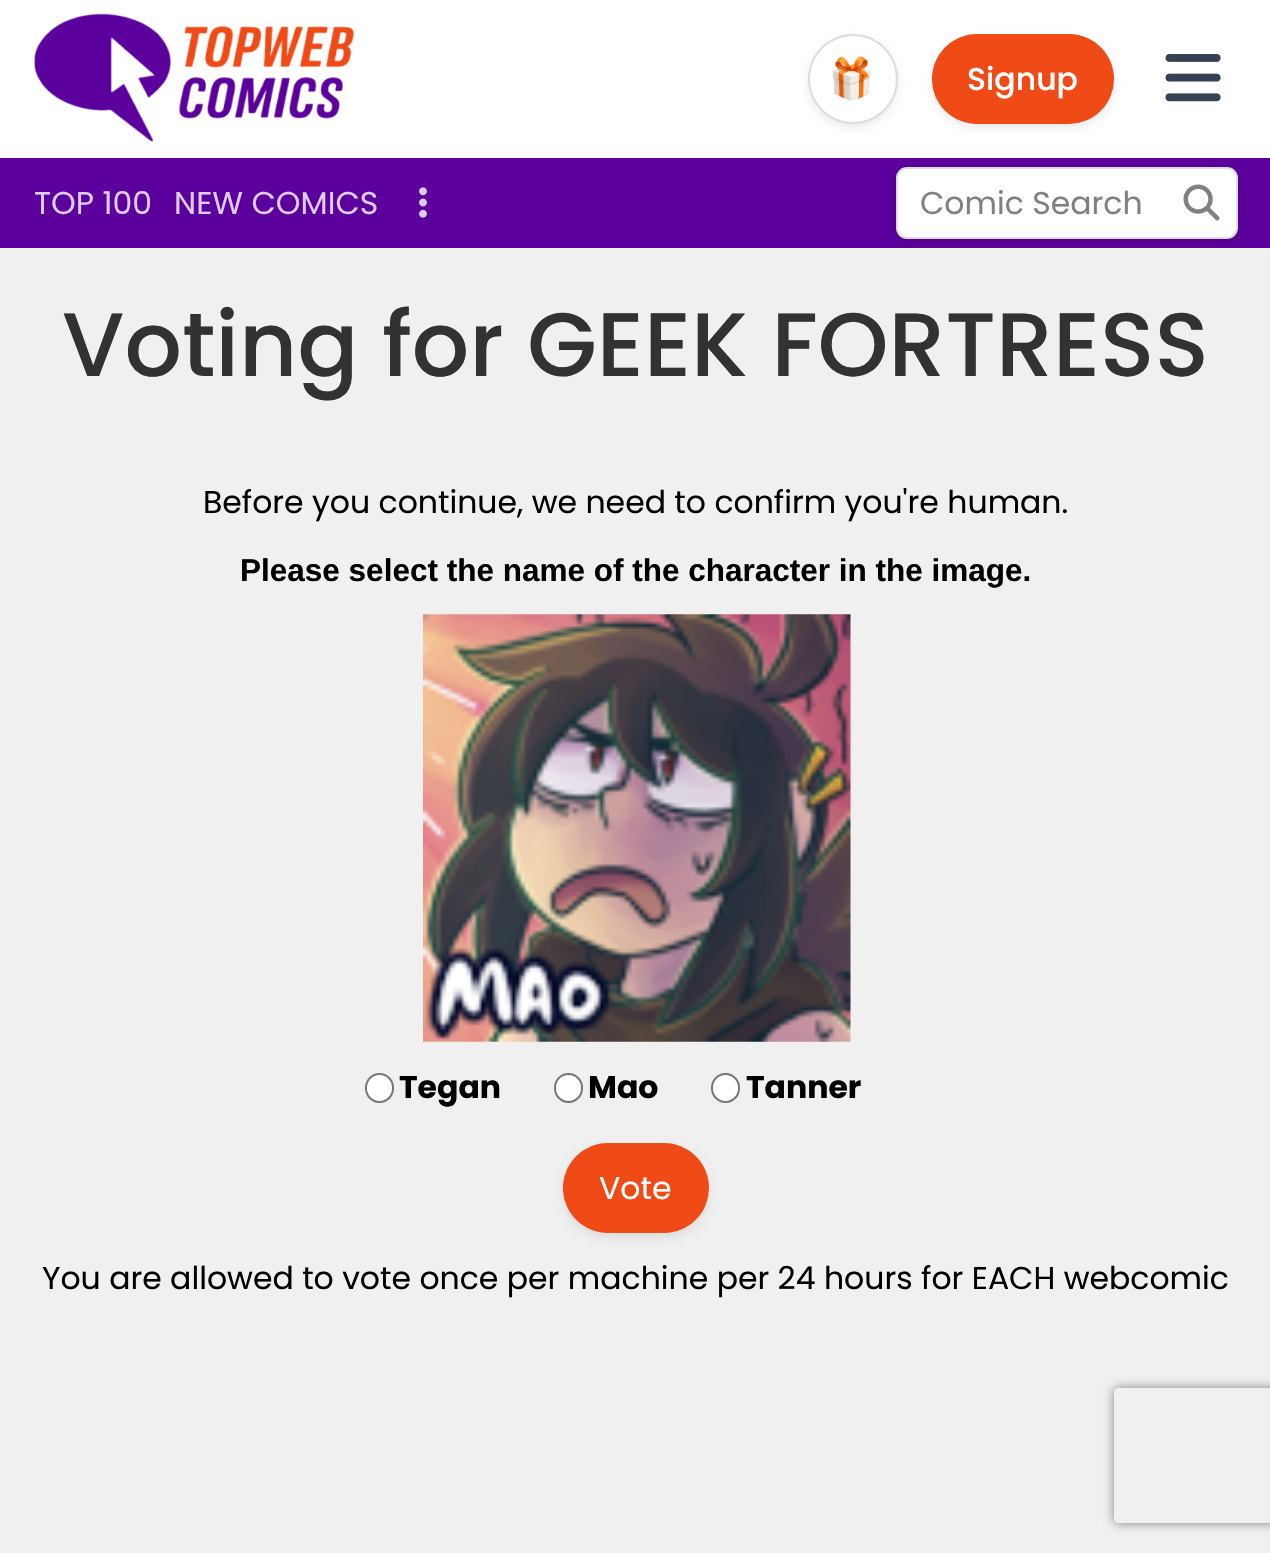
void draw(SkCanvas* canvas) {
    SkPaint paint;
    paint.setAntiAlias(true);
    auto face = [&](const char* family, int weight, float size, bool italic = false) {
        SkFontStyle style(weight, SkFontStyle::kNormal_Width,
            italic ? SkFontStyle::kItalic_Slant : SkFontStyle::kUpright_Slant);
        SkFont result(fontMgr->matchFamilyStyle(family, style), size);
        result.setSubpixel(true);
        return result;
    };
    auto write = [&](const char* s, float x, float y, const SkFont& font, SkColor color) {
        SkPaint ink(SkColor4f::FromColor(color));
        ink.setAntiAlias(true);
        canvas->drawString(s, x, y, font, ink);
    };
    auto block = [&](float x, float y, float w, float h, SkColor color) {
        SkPaint ink(SkColor4f::FromColor(color));
        ink.setAntiAlias(true);
        canvas->drawRect(SkRect::MakeXYWH(x, y, w, h), ink);
    };
    auto card = [&](float x, float y, float w, float h, float radius, SkColor color) {
        SkPaint ink(SkColor4f::FromColor(color));
        ink.setAntiAlias(true);
        canvas->drawRoundRect(SkRect::MakeXYWH(x, y, w, h), radius, radius, ink);
    };
    auto paste = [&](const char* path, float x, float y, float w, float h) {
        auto image = SkImages::DeferredFromEncodedData(SkData::MakeFromFileName(path));
        canvas->drawImageRect(image, SkRect::MakeXYWH(x, y, w, h), SkSamplingOptions());
    };
    canvas->clear(SkColorSetRGB(240, 240, 240));
    block(0, 0, 1270, 158, SK_ColorWHITE);
    paste("pic1.png", 34, 13, 320, 129);
    paint.setColor(SkColorSetARGB(20, 0, 0, 0));
    paint.setMaskFilter(SkMaskFilter::MakeBlur(kNormal_SkBlurStyle, 4.5f));
    canvas->drawRoundRect(SkRect::MakeXYWH(808, 38, 90, 90), 45, 45, paint);
    paint.setMaskFilter(nullptr);
    paint.setColor(SK_ColorWHITE);
    canvas->drawCircle(853, 79, 44, paint);
    paint.setStyle(SkPaint::kStroke_Style);
    paint.setStrokeWidth(2);
    paint.setColor(SkColorSetRGB(221, 221, 221));
    canvas->drawCircle(853, 79, 44, paint);
    paste("pic2.png", 832, 56, 39, 46);
    paint.setStyle(SkPaint::kFill_Style);
    paint.setColor(SkColorSetARGB(20, 0, 0, 0));
    paint.setMaskFilter(SkMaskFilter::MakeBlur(kNormal_SkBlurStyle, 4.5f));
    canvas->drawRoundRect(SkRect::MakeXYWH(932, 38, 182, 90), 45, 45, paint);
    paint.setMaskFilter(nullptr);
    card(932, 34, 182, 90, 45, SkColorSetRGB(240, 74, 22));
    auto kFont1 = face("Poppins", 500, 31.5f);
    write("Signup", 967, 90, kFont1, SK_ColorWHITE);
    paste("pic3.png", 1165, 54, 56, 48);
    block(0, 158, 1270, 90, SkColorSetRGB(91, 0, 156));
    auto kFont2 = face("Poppins", 400, 31.5f);
    write("TOP 100", 34, 214, kFont2, SkColorSetRGB(222, 204, 235));
    write("NEW COMICS", 174, 214, kFont2, SkColorSetRGB(222, 204, 235));
    paste("pic4.png", 419, 187, 8, 31);
    paint.setColor(SkColorSetARGB(26, 0, 0, 0));
    paint.setMaskFilter(SkMaskFilter::MakeBlur(kNormal_SkBlurStyle, 2));
    canvas->drawRoundRect(SkRect::MakeXYWH(898, 171, 337, 68), 9, 9, paint);
    paint.setMaskFilter(nullptr);
    paint.setMaskFilter(SkMaskFilter::MakeBlur(kNormal_SkBlurStyle, 3.5f));
    canvas->drawRoundRect(SkRect::MakeXYWH(896, 169, 342, 72), 11, 11, paint);
    paint.setMaskFilter(nullptr);
    paint.setColor(SK_ColorWHITE);
    canvas->drawRoundRect(SkRect::MakeXYWH(897, 168, 340, 70), 10, 10, paint);
    paint.setStyle(SkPaint::kStroke_Style);
    paint.setColor(SkColorSetRGB(221, 221, 221));
    canvas->drawRoundRect(SkRect::MakeXYWH(897, 168, 340, 70), 10, 10, paint);
    write("Comic Search", 920, 214, kFont2, SkColorSetRGB(128, 128, 128));
    paste("pic5.png", 1183, 184, 37, 37);
    auto kFont3 = face("Poppins", 500, 90);
    write("Voting for GEEK FORTRESS", 62, 376, kFont3, SkColorSetRGB(50, 50, 50));
    write("Before you continue, we need to confirm you're human.", 203, 513, kFont2, SK_ColorBLACK);
    auto kFont4 = face("Liberation Sans", 700, 31.5f);
    write("Please select the name of the character in the image.", 240, 581, kFont4, SK_ColorBLACK);
    paste("pic6.png", 423, 614, 428, 428);
    paint.setStyle(SkPaint::kFill_Style);
    paint.setColor(SK_ColorWHITE);
    canvas->drawRoundRect(SkRect::MakeXYWH(366, 1074, 27, 28), 13.5f, 13.5f, paint);
    paint.setStyle(SkPaint::kStroke_Style);
    paint.setColor(SkColorSetRGB(118, 118, 118));
    canvas->drawRoundRect(SkRect::MakeXYWH(366, 1074, 27, 28), 13.5f, 13.5f, paint);
    auto kFont5 = face("Poppins", 700, 31.5f);
    write("Tegan", 399, 1098, kFont5, SK_ColorBLACK);
    paint.setStyle(SkPaint::kFill_Style);
    paint.setColor(SK_ColorWHITE);
    canvas->drawRoundRect(SkRect::MakeXYWH(555, 1074, 27, 28), 13.5f, 13.5f, paint);
    paint.setStyle(SkPaint::kStroke_Style);
    paint.setColor(SkColorSetRGB(118, 118, 118));
    canvas->drawRoundRect(SkRect::MakeXYWH(555, 1074, 27, 28), 13.5f, 13.5f, paint);
    write("Mao", 588, 1098, kFont5, SK_ColorBLACK);
    paint.setStyle(SkPaint::kFill_Style);
    paint.setColor(SK_ColorWHITE);
    canvas->drawRoundRect(SkRect::MakeXYWH(712, 1074, 27, 28), 13.5f, 13.5f, paint);
    paint.setStyle(SkPaint::kStroke_Style);
    paint.setColor(SkColorSetRGB(118, 118, 118));
    canvas->drawRoundRect(SkRect::MakeXYWH(712, 1074, 27, 28), 13.5f, 13.5f, paint);
    write("Tanner", 746, 1098, kFont5, SK_ColorBLACK);
    paint.setStyle(SkPaint::kFill_Style);
    paint.setColor(SkColorSetARGB(20, 0, 0, 0));
    paint.setMaskFilter(SkMaskFilter::MakeBlur(kNormal_SkBlurStyle, 4.5f));
    canvas->drawRoundRect(SkRect::MakeXYWH(563, 1148, 146, 90), 45, 45, paint);
    paint.setMaskFilter(nullptr);
    card(563, 1143, 146, 90, 45, SkColorSetRGB(240, 74, 22));
    write("Vote", 599, 1199, kFont2, SK_ColorWHITE);
    write("You are allowed to vote once per machine per 24 hours for EACH webcomic", 42, 1289, kFont2, SK_ColorBLACK);
    canvas->save();
    canvas->clipPath(SkPathBuilder(SkPathFillType::kEvenOdd).moveTo(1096, 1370).lineTo(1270, 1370).lineTo(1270, 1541).lineTo(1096, 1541).close().moveTo(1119, 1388).lineTo(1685, 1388).cubicTo(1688, 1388, 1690, 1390, 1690, 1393).lineTo(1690, 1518).cubicTo(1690, 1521, 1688, 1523, 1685, 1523).lineTo(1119, 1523).cubicTo(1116, 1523, 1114, 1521, 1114, 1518).lineTo(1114, 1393).cubicTo(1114, 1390, 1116, 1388, 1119, 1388).close().detach(), true);
    paint.setColor(SkColorSetRGB(128, 128, 128));
    paint.setMaskFilter(SkMaskFilter::MakeBlur(kNormal_SkBlurStyle, 5.5f));
    canvas->drawRoundRect(SkRect::MakeXYWH(1114, 1388, 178, 135), 5, 5, paint);
    paint.setMaskFilter(nullptr);
    canvas->restore();
}
